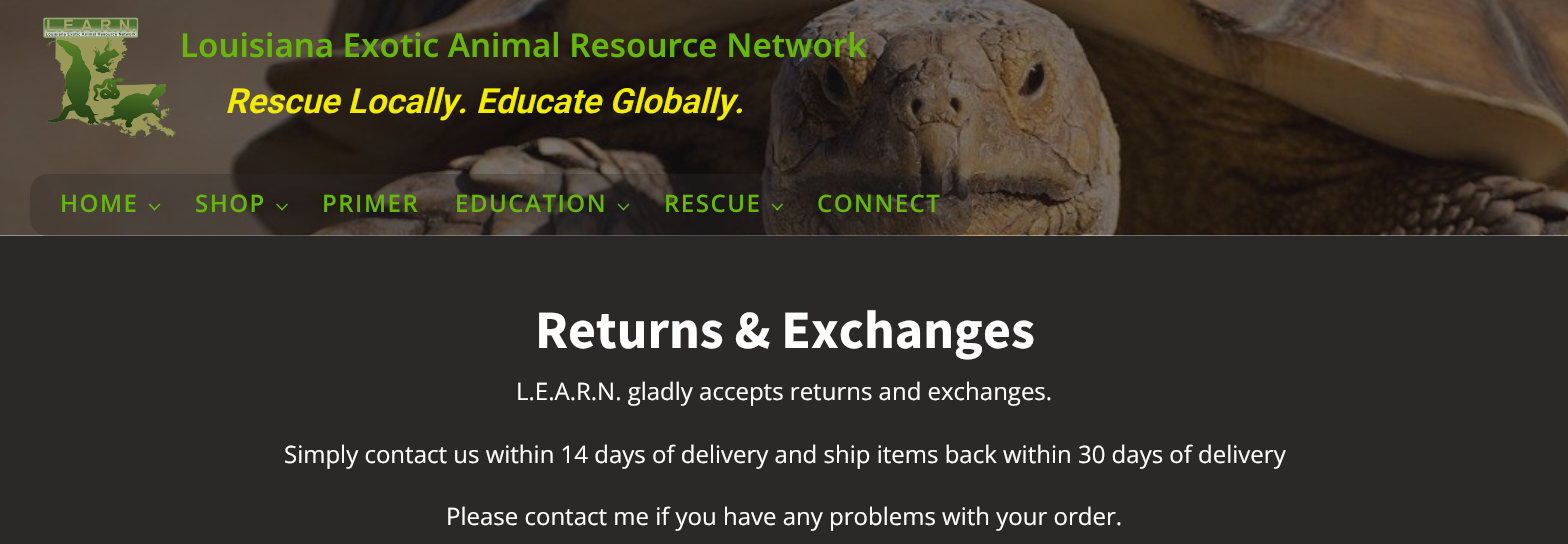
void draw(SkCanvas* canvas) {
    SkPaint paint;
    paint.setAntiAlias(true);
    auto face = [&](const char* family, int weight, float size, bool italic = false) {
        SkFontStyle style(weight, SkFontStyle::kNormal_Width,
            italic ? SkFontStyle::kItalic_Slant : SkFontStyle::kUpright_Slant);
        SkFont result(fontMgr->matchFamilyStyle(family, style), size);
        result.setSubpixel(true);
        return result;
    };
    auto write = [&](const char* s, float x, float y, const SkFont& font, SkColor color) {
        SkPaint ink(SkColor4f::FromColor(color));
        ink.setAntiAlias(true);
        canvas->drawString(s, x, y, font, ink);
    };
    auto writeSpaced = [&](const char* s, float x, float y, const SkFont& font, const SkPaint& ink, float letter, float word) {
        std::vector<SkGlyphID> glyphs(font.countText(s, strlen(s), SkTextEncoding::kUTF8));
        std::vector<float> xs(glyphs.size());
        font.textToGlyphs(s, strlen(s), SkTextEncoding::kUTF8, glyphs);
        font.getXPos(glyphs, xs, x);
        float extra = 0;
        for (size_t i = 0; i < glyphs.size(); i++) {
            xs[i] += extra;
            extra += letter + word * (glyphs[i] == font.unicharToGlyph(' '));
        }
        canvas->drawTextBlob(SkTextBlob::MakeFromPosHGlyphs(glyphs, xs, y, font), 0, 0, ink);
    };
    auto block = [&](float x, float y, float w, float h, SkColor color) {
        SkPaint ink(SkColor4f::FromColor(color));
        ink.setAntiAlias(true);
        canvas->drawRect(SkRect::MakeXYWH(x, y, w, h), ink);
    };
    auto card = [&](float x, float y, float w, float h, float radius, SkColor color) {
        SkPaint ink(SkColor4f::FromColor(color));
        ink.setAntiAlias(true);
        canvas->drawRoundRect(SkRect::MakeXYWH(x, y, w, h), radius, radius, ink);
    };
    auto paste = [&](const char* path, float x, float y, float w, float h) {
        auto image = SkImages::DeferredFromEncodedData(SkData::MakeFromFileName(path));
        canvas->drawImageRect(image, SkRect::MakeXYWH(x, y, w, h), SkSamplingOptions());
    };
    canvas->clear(SK_ColorWHITE);
    paste("pic1.png", 0, 0, 1568, 236);
    paste("pic2.png", 43, 17, 133, 123);
    auto kFont1 = face("Noto Sans", 600, 33);
    write("Louisiana Exotic Animal Resource Network", 180, 57, kFont1, SkColorSetRGB(102, 183, 9));
    auto kFont2 = face("Roboto", 600, 34.5f, true);
    write("Rescue Locally. Educate Globally.", 225, 113, kFont2, SkColorSetRGB(244, 236, 0));
    card(30, 174, 942, 62, 18, SkColorSetARGB(84, 43, 40, 40));
    auto kFont3 = face("Open Sans", 600, 24);
    paint.setColor(SkColorSetRGB(102, 183, 9));
    writeSpaced("HOME", 60, 212, kFont3, paint, 1.5f, 0);
    canvas->drawPath(SkPathBuilder().moveTo(160.5f, 204.5f).lineTo(154.5f, 210.5f).lineTo(153.5f, 209.5f).lineTo(159.5f, 203.5f).close().detach(), paint);
    canvas->drawPath(SkPathBuilder().moveTo(155.5f, 209.5f).lineTo(154.5f, 210.5f).lineTo(148.5f, 204.5f).lineTo(150, 203.5f).close().detach(), paint);
    writeSpaced("SHOP", 195, 212, kFont3, paint, 1.5f, 0);
    canvas->drawPath(SkPathBuilder().moveTo(288, 204.5f).lineTo(282, 210.5f).lineTo(281, 209.5f).lineTo(287, 203.5f).close().detach(), paint);
    canvas->drawPath(SkPathBuilder().moveTo(283, 209.5f).lineTo(282, 210.5f).lineTo(276, 204.5f).lineTo(277, 203.5f).close().detach(), paint);
    writeSpaced("PRIMER", 322, 212, kFont3, paint, 1.5f, 0);
    writeSpaced("EDUCATION", 455, 212, kFont3, paint, 1.5f, 0);
    canvas->drawPath(SkPathBuilder().moveTo(629.5f, 204.5f).lineTo(623.5f, 210.5f).lineTo(622.5f, 209.5f).lineTo(628.5f, 203.5f).close().detach(), paint);
    canvas->drawPath(SkPathBuilder().moveTo(624.5f, 209.5f).lineTo(623.5f, 210.5f).lineTo(617.5f, 204.5f).lineTo(618.5f, 203.5f).close().detach(), paint);
    writeSpaced("RESCUE", 664, 212, kFont3, paint, 1.5f, 0);
    canvas->drawPath(SkPathBuilder().moveTo(783, 204.5f).lineTo(777.5f, 210.5f).lineTo(776, 209.5f).lineTo(782, 203.5f).close().detach(), paint);
    canvas->drawPath(SkPathBuilder().moveTo(778.5f, 209.5f).lineTo(777.5f, 210.5f).lineTo(771.5f, 204.5f).lineTo(772.5f, 203.5f).close().detach(), paint);
    writeSpaced("CONNECT", 817, 212, kFont3, paint, 1.5f, 0);
    block(0, 236, 1568, 308, SkColorSetRGB(43, 40, 40));
    auto kFont4 = face("Source Sans Pro", 700, 54);
    write("Returns & Exchanges", 535, 348, kFont4, SK_ColorWHITE);
    auto kFont5 = face("Open Sans", 400, 24);
    write("L.E.A.R.N. gladly accepts returns and exchanges.", 516, 400, kFont5, SK_ColorWHITE);
    write("Simply contact us within 14 days of delivery and ship items back within 30 days of delivery", 284, 463, kFont5, SK_ColorWHITE);
    write("Please contact me if you have any problems with your order.", 446, 525, kFont5, SK_ColorWHITE);
}
